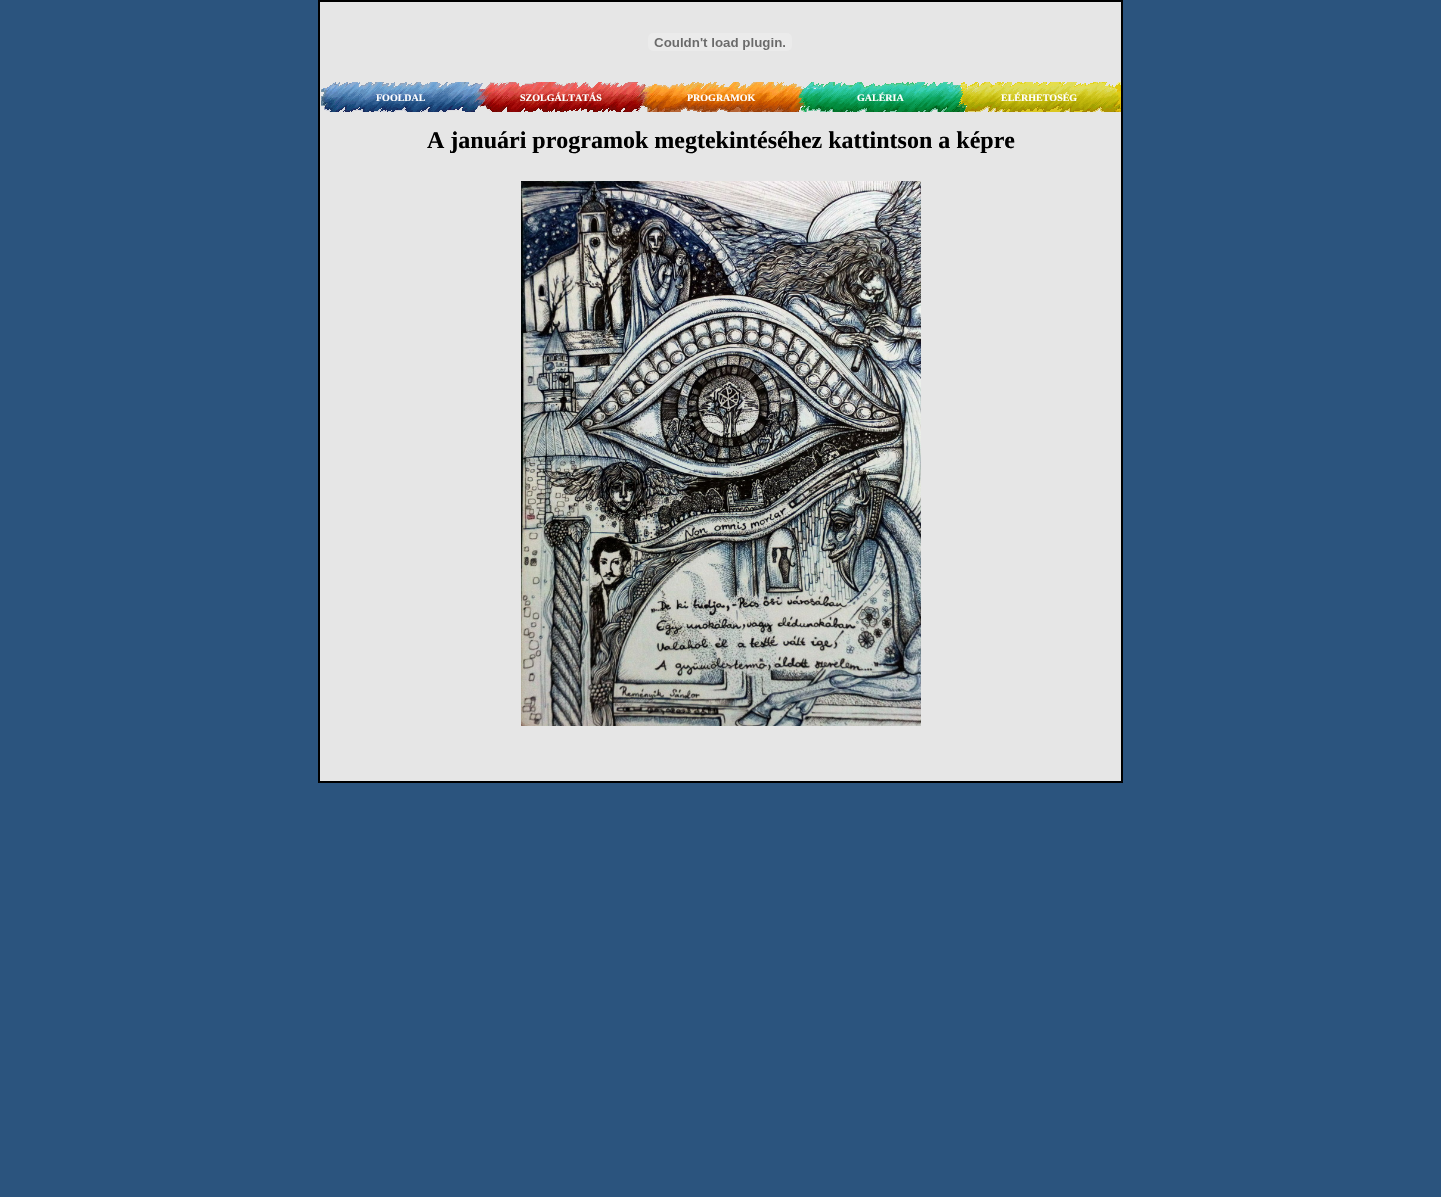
void draw(SkCanvas* canvas) {
    SkPaint paint;
    paint.setAntiAlias(true);
    auto face = [&](const char* family, int weight, float size, bool italic = false) {
        SkFontStyle style(weight, SkFontStyle::kNormal_Width,
            italic ? SkFontStyle::kItalic_Slant : SkFontStyle::kUpright_Slant);
        SkFont result(fontMgr->matchFamilyStyle(family, style), size);
        result.setSubpixel(true);
        return result;
    };
    auto write = [&](const char* s, float x, float y, const SkFont& font, SkColor color) {
        SkPaint ink(SkColor4f::FromColor(color));
        ink.setAntiAlias(true);
        canvas->drawString(s, x, y, font, ink);
    };
    auto paste = [&](const char* path, float x, float y, float w, float h) {
        auto image = SkImages::DeferredFromEncodedData(SkData::MakeFromFileName(path));
        canvas->drawImageRect(image, SkRect::MakeXYWH(x, y, w, h), SkSamplingOptions());
    };
    canvas->clear(SkColorSetRGB(43, 84, 126));
    paint.setColor(SkColorSetRGB(230, 230, 230));
    canvas->drawRect(SkRect::MakeXYWH(319, 1, 803, 781), paint);
    paint.setStyle(SkPaint::kStroke_Style);
    paint.setStrokeWidth(2);
    paint.setColor(SK_ColorBLACK);
    canvas->drawRect(SkRect::MakeXYWH(319, 1, 803, 781), paint);
    paste("pic1.png", 648, 33, 144, 18);
    paste("pic2.png", 321, 82, 800, 30);
    auto kFont1 = face("Liberation Serif", 700, 10);
    write("FOOLDAL", 376, 101, kFont1, SK_ColorWHITE);
    write("SZOLGÁLTATÁS", 520, 101, kFont1, SK_ColorWHITE);
    write("PROGRAMOK", 687, 101, kFont1, SK_ColorWHITE);
    write("GALÉRIA", 857, 101, kFont1, SK_ColorWHITE);
    write("ELÉRHETOSÉG", 1001, 101, kFont1, SK_ColorWHITE);
    auto kFont2 = face("Liberation Serif", 700, 24);
    write("A januári programok megtekintéséhez kattintson a képre", 427, 148, kFont2, SK_ColorBLACK);
    paste("pic3.png", 521, 181, 400, 545);
}
